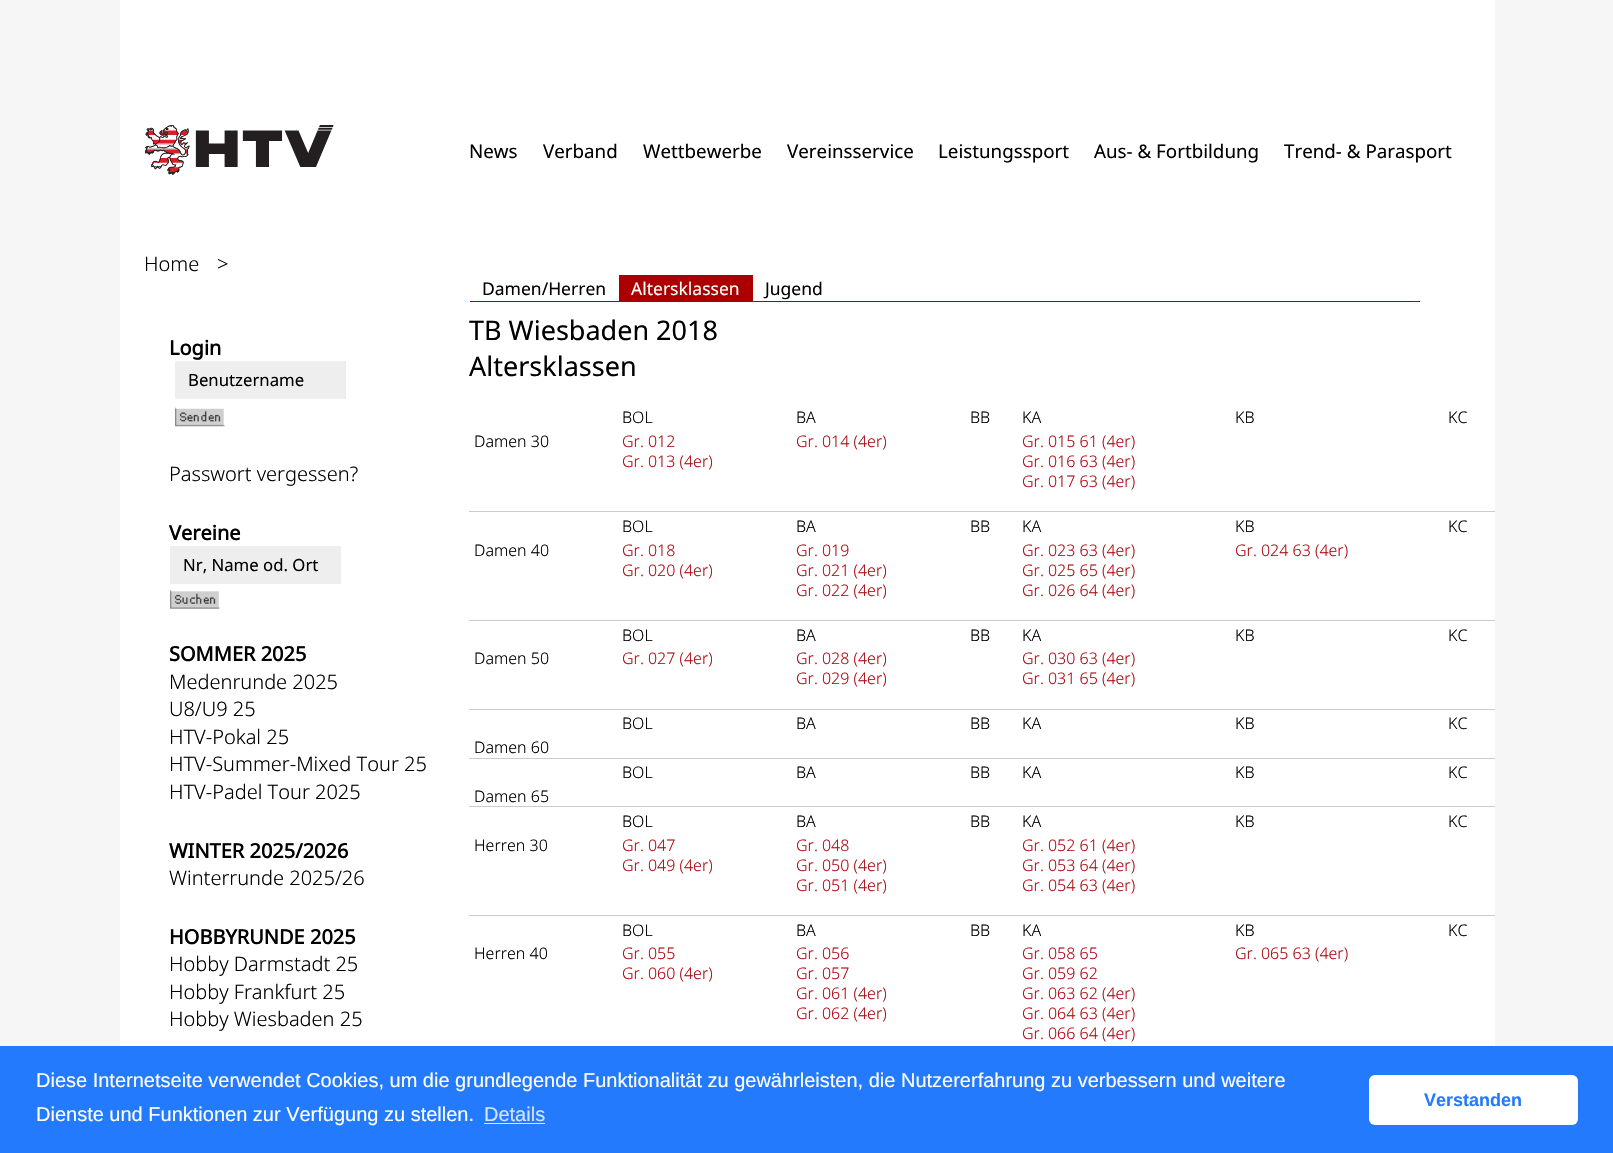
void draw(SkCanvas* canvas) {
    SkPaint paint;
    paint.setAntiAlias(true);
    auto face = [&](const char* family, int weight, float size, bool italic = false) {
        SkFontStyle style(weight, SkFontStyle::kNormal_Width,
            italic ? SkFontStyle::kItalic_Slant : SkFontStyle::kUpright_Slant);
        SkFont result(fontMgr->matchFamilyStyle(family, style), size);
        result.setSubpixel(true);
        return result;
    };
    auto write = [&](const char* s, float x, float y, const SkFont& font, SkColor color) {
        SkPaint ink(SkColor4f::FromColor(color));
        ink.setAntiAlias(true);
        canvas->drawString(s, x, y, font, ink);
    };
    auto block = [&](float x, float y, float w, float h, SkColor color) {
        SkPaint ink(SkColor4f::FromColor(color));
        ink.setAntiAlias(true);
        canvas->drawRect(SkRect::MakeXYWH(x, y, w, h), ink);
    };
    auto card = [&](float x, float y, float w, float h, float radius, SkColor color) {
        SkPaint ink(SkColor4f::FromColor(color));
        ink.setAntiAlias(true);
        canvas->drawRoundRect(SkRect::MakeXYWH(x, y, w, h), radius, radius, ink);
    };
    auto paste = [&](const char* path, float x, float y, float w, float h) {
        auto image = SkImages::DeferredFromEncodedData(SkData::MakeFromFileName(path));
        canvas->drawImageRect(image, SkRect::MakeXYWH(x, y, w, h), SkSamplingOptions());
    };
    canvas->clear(SkColorSetRGB(246, 246, 246));
    block(120, 0, 1375, 1046, SK_ColorWHITE);
    paste("pic1.png", 145, 125, 189, 50);
    auto kFont1 = face("Noto Sans", 400, 18.75f);
    write("News", 469, 158, kFont1, SK_ColorBLACK);
    write("Verband", 543, 158, kFont1, SK_ColorBLACK);
    write("Wettbewerbe", 643, 158, kFont1, SK_ColorBLACK);
    write("Vereinsservice", 787, 158, kFont1, SK_ColorBLACK);
    write("Leistungssport", 938, 158, kFont1, SK_ColorBLACK);
    write("Aus- & Fortbildung", 1094, 158, kFont1, SK_ColorBLACK);
    write("Trend- & Parasport", 1284, 158, kFont1, SK_ColorBLACK);
    auto kFont2 = face("Noto Sans", 300, 20);
    write("Home", 144, 271, kFont2, SK_ColorBLACK);
    write(">", 217, 271, kFont2, SK_ColorBLACK);
    block(470, 301, 950, 1, SkColorSetRGB(172, 0, 0));
    auto kFont3 = face("Noto Sans", 400, 17.5f);
    write("Damen/Herren", 482, 295, kFont3, SK_ColorBLACK);
    block(619, 275, 134, 26, SkColorSetRGB(172, 0, 0));
    write("Altersklassen", 631, 295, kFont3, SK_ColorWHITE);
    write("Jugend", 765, 295, kFont3, SK_ColorBLACK);
    auto kFont4 = face("Noto Sans", 700, 20);
    write("Login", 169, 355, kFont4, SK_ColorBLACK);
    block(175, 361, 171, 38, SkColorSetRGB(238, 238, 238));
    auto kFont5 = face("Noto Sans", 400, 16.75f);
    write("Benutzername", 188, 386, kFont5, SK_ColorBLACK);
    paste("pic2.png", 175, 407, 50, 20);
    write("Passwort vergessen?", 169, 481, kFont2, SK_ColorBLACK);
    write("Vereine", 169, 540, kFont4, SK_ColorBLACK);
    block(170, 546, 171, 38, SkColorSetRGB(238, 238, 238));
    write("Nr, Name od. Ort", 183, 571, kFont5, SK_ColorBLACK);
    paste("pic3.png", 170, 590, 50, 19);
    write("SOMMER 2025", 169, 661, kFont4, SK_ColorBLACK);
    write("Medenrunde 2025", 169, 689, kFont2, SK_ColorBLACK);
    write("U8/U9 25", 169, 716, kFont2, SK_ColorBLACK);
    write("HTV-Pokal 25", 169, 744, kFont2, SK_ColorBLACK);
    write("HTV-Summer-Mixed Tour 25", 169, 771, kFont2, SK_ColorBLACK);
    write("HTV-Padel Tour 2025", 169, 799, kFont2, SK_ColorBLACK);
    write("WINTER 2025/2026", 169, 858, kFont4, SK_ColorBLACK);
    write("Winterrunde 2025/26", 169, 885, kFont2, SK_ColorBLACK);
    write("HOBBYRUNDE 2025", 169, 944, kFont4, SK_ColorBLACK);
    write("Hobby Darmstadt 25", 169, 971, kFont2, SK_ColorBLACK);
    write("Hobby Frankfurt 25", 169, 999, kFont2, SK_ColorBLACK);
    write("Hobby Wiesbaden 25", 169, 1026, kFont2, SK_ColorBLACK);
    auto kFont6 = face("Noto Sans", 400, 27);
    write("TB Wiesbaden 2018", 469, 340, kFont6, SK_ColorBLACK);
    write("Altersklassen", 469, 376, kFont6, SK_ColorBLACK);
    auto kFont7 = face("Noto Sans", 300, 16);
    write("BOL", 622, 423, kFont7, SK_ColorBLACK);
    write("BA", 796, 423, kFont7, SK_ColorBLACK);
    write("BB", 970, 423, kFont7, SK_ColorBLACK);
    write("KA", 1022, 423, kFont7, SK_ColorBLACK);
    write("KB", 1235, 423, kFont7, SK_ColorBLACK);
    write("KC", 1448, 423, kFont7, SK_ColorBLACK);
    write("Damen 30", 474, 447, kFont7, SK_ColorBLACK);
    write("Gr. 012", 622, 447, kFont7, SkColorSetRGB(174, 14, 22));
    write("Gr. 013 (4er)", 622, 467, kFont7, SkColorSetRGB(174, 14, 22));
    write("Gr. 014 (4er)", 796, 447, kFont7, SkColorSetRGB(174, 14, 22));
    write("Gr. 015 61 (4er)", 1022, 447, kFont7, SkColorSetRGB(174, 14, 22));
    write("Gr. 016 63 (4er)", 1022, 467, kFont7, SkColorSetRGB(174, 14, 22));
    write("Gr. 017 63 (4er)", 1022, 487, kFont7, SkColorSetRGB(174, 14, 22));
    block(469, 511, 1026, 1, SkColorSetRGB(204, 204, 204));
    write("BOL", 622, 532, kFont7, SK_ColorBLACK);
    write("BA", 796, 532, kFont7, SK_ColorBLACK);
    write("BB", 970, 532, kFont7, SK_ColorBLACK);
    write("KA", 1022, 532, kFont7, SK_ColorBLACK);
    write("KB", 1235, 532, kFont7, SK_ColorBLACK);
    write("KC", 1448, 532, kFont7, SK_ColorBLACK);
    write("Damen 40", 474, 556, kFont7, SK_ColorBLACK);
    write("Gr. 018", 622, 556, kFont7, SkColorSetRGB(174, 14, 22));
    write("Gr. 020 (4er)", 622, 576, kFont7, SkColorSetRGB(174, 14, 22));
    write("Gr. 019", 796, 556, kFont7, SkColorSetRGB(174, 14, 22));
    write("Gr. 021 (4er)", 796, 576, kFont7, SkColorSetRGB(174, 14, 22));
    write("Gr. 022 (4er)", 796, 596, kFont7, SkColorSetRGB(174, 14, 22));
    write("Gr. 023 63 (4er)", 1022, 556, kFont7, SkColorSetRGB(174, 14, 22));
    write("Gr. 025 65 (4er)", 1022, 576, kFont7, SkColorSetRGB(174, 14, 22));
    write("Gr. 026 64 (4er)", 1022, 596, kFont7, SkColorSetRGB(174, 14, 22));
    write("Gr. 024 63 (4er)", 1235, 556, kFont7, SkColorSetRGB(174, 14, 22));
    block(469, 620, 1026, 1, SkColorSetRGB(204, 204, 204));
    write("BOL", 622, 641, kFont7, SK_ColorBLACK);
    write("BA", 796, 641, kFont7, SK_ColorBLACK);
    write("BB", 970, 641, kFont7, SK_ColorBLACK);
    write("KA", 1022, 641, kFont7, SK_ColorBLACK);
    write("KB", 1235, 641, kFont7, SK_ColorBLACK);
    write("KC", 1448, 641, kFont7, SK_ColorBLACK);
    write("Damen 50", 474, 664, kFont7, SK_ColorBLACK);
    write("Gr. 027 (4er)", 622, 664, kFont7, SkColorSetRGB(174, 14, 22));
    write("Gr. 028 (4er)", 796, 664, kFont7, SkColorSetRGB(174, 14, 22));
    write("Gr. 029 (4er)", 796, 684, kFont7, SkColorSetRGB(174, 14, 22));
    write("Gr. 030 63 (4er)", 1022, 664, kFont7, SkColorSetRGB(174, 14, 22));
    write("Gr. 031 65 (4er)", 1022, 684, kFont7, SkColorSetRGB(174, 14, 22));
    block(469, 709, 1026, 1, SkColorSetRGB(204, 204, 204));
    write("BOL", 622, 729, kFont7, SK_ColorBLACK);
    write("BA", 796, 729, kFont7, SK_ColorBLACK);
    write("BB", 970, 729, kFont7, SK_ColorBLACK);
    write("KA", 1022, 729, kFont7, SK_ColorBLACK);
    write("KB", 1235, 729, kFont7, SK_ColorBLACK);
    write("KC", 1448, 729, kFont7, SK_ColorBLACK);
    write("Damen 60", 474, 753, kFont7, SK_ColorBLACK);
    block(469, 758, 1026, 1, SkColorSetRGB(204, 204, 204));
    write("BOL", 622, 778, kFont7, SK_ColorBLACK);
    write("BA", 796, 778, kFont7, SK_ColorBLACK);
    write("BB", 970, 778, kFont7, SK_ColorBLACK);
    write("KA", 1022, 778, kFont7, SK_ColorBLACK);
    write("KB", 1235, 778, kFont7, SK_ColorBLACK);
    write("KC", 1448, 778, kFont7, SK_ColorBLACK);
    write("Damen 65", 474, 802, kFont7, SK_ColorBLACK);
    block(469, 806, 1026, 1, SkColorSetRGB(204, 204, 204));
    write("BOL", 622, 827, kFont7, SK_ColorBLACK);
    write("BA", 796, 827, kFont7, SK_ColorBLACK);
    write("BB", 970, 827, kFont7, SK_ColorBLACK);
    write("KA", 1022, 827, kFont7, SK_ColorBLACK);
    write("KB", 1235, 827, kFont7, SK_ColorBLACK);
    write("KC", 1448, 827, kFont7, SK_ColorBLACK);
    write("Herren 30", 474, 851, kFont7, SK_ColorBLACK);
    write("Gr. 047", 622, 851, kFont7, SkColorSetRGB(174, 14, 22));
    write("Gr. 049 (4er)", 622, 871, kFont7, SkColorSetRGB(174, 14, 22));
    write("Gr. 048", 796, 851, kFont7, SkColorSetRGB(174, 14, 22));
    write("Gr. 050 (4er)", 796, 871, kFont7, SkColorSetRGB(174, 14, 22));
    write("Gr. 051 (4er)", 796, 891, kFont7, SkColorSetRGB(174, 14, 22));
    write("Gr. 052 61 (4er)", 1022, 851, kFont7, SkColorSetRGB(174, 14, 22));
    write("Gr. 053 64 (4er)", 1022, 871, kFont7, SkColorSetRGB(174, 14, 22));
    write("Gr. 054 63 (4er)", 1022, 891, kFont7, SkColorSetRGB(174, 14, 22));
    block(469, 915, 1026, 1, SkColorSetRGB(204, 204, 204));
    write("BOL", 622, 936, kFont7, SK_ColorBLACK);
    write("BA", 796, 936, kFont7, SK_ColorBLACK);
    write("BB", 970, 936, kFont7, SK_ColorBLACK);
    write("KA", 1022, 936, kFont7, SK_ColorBLACK);
    write("KB", 1235, 936, kFont7, SK_ColorBLACK);
    write("KC", 1448, 936, kFont7, SK_ColorBLACK);
    write("Herren 40", 474, 959, kFont7, SK_ColorBLACK);
    write("Gr. 055", 622, 959, kFont7, SkColorSetRGB(174, 14, 22));
    write("Gr. 060 (4er)", 622, 979, kFont7, SkColorSetRGB(174, 14, 22));
    write("Gr. 056", 796, 959, kFont7, SkColorSetRGB(174, 14, 22));
    write("Gr. 057", 796, 979, kFont7, SkColorSetRGB(174, 14, 22));
    write("Gr. 061 (4er)", 796, 999, kFont7, SkColorSetRGB(174, 14, 22));
    write("Gr. 062 (4er)", 796, 1019, kFont7, SkColorSetRGB(174, 14, 22));
    write("Gr. 058 65", 1022, 959, kFont7, SkColorSetRGB(174, 14, 22));
    write("Gr. 059 62", 1022, 979, kFont7, SkColorSetRGB(174, 14, 22));
    write("Gr. 063 62 (4er)", 1022, 999, kFont7, SkColorSetRGB(174, 14, 22));
    write("Gr. 064 63 (4er)", 1022, 1019, kFont7, SkColorSetRGB(174, 14, 22));
    write("Gr. 066 64 (4er)", 1022, 1039, kFont7, SkColorSetRGB(174, 14, 22));
    write("Gr. 065 63 (4er)", 1235, 959, kFont7, SkColorSetRGB(174, 14, 22));
    block(0, 1046, 1613, 107, SkColorSetRGB(35, 122, 252));
    auto kFont8 = face("Liberation Sans", 400, 20);
    write("Diese Internetseite verwendet Cookies, um die grundlegende Funktionalität zu gewährleisten, die Nutzererfahrung zu verbessern und weitere", 36, 1087, kFont8, SK_ColorWHITE);
    write("Dienste und Funktionen zur Verfügung zu stellen.", 36, 1121, kFont8, SK_ColorWHITE);
    write("Details", 484, 1121, kFont8, SkColorSetRGB(211, 228, 254));
    block(484, 1123, 61, 1, SkColorSetRGB(211, 228, 254));
    card(1369, 1075, 209, 50, 6, SK_ColorWHITE);
    auto kFont9 = face("Liberation Sans", 700, 18);
    write("Verstanden", 1424, 1106, kFont9, SkColorSetRGB(35, 122, 252));
}
